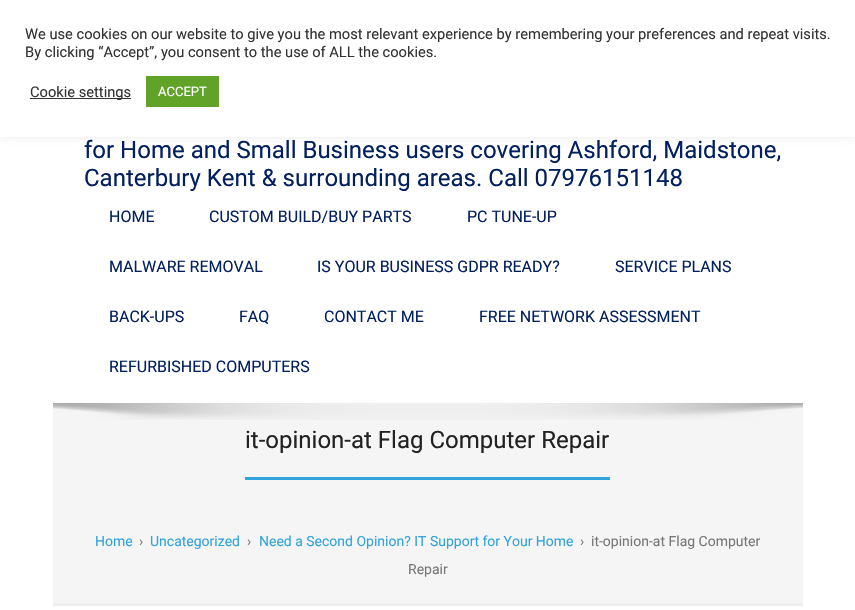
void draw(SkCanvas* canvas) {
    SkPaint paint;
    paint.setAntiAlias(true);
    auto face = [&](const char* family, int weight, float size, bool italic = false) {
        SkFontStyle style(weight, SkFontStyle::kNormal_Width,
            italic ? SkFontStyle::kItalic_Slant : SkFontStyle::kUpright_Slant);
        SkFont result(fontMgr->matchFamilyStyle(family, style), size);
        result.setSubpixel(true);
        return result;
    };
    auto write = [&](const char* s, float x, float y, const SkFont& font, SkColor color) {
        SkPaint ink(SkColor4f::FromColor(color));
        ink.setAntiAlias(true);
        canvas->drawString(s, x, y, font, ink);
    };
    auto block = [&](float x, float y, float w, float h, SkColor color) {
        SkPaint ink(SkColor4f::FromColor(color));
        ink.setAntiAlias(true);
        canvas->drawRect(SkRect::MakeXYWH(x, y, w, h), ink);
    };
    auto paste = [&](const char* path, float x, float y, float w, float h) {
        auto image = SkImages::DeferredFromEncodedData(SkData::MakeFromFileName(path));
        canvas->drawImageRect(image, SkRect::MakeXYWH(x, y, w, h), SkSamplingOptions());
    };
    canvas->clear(SK_ColorWHITE);
    paint.setColor(SkColorSetARGB(77, 172, 171, 171));
    paint.setMaskFilter(SkMaskFilter::MakeBlur(kNormal_SkBlurStyle, 5));
    canvas->drawRect(SkRect::MakeXYWH(0, -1, 855, 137), paint);
    paint.setMaskFilter(nullptr);
    block(0, 0, 855, 137, SK_ColorWHITE);
    auto kFont1 = face("Roboto", 400, 14.67f);
    write("We use cookies on our website to give you the most relevant experience by remembering your preferences and repeat visits.", 25, 39, kFont1, SkColorSetRGB(51, 51, 51));
    write("By clicking “Accept”, you consent to the use of ALL the cookies.", 25, 57, kFont1, SkColorSetRGB(51, 51, 51));
    block(30, 98, 101, 1, SkColorSetRGB(51, 51, 51));
    write("Cookie settings", 30, 97, kFont1, SkColorSetRGB(51, 51, 51));
    block(146, 76, 73, 31, SkColorSetRGB(97, 162, 41));
    auto kFont2 = face("Roboto", 400, 13);
    write("ACCEPT", 158, 96, kFont2, SK_ColorWHITE);
    block(53, 403, 750, 1, SkColorSetRGB(242, 242, 242));
    auto kFont3 = face("Roboto", 400, 24);
    write("for Home and Small Business users covering Ashford, Maidstone,", 84, 158, kFont3, SkColorSetRGB(2, 32, 96));
    write("Canterbury Kent & surrounding areas. Call 07976151148", 84, 186, kFont3, SkColorSetRGB(2, 32, 96));
    auto kFont4 = face("Roboto", 400, 16);
    write("HOME", 109, 222, kFont4, SkColorSetRGB(2, 32, 96));
    write("CUSTOM BUILD/BUY PARTS", 209, 222, kFont4, SkColorSetRGB(2, 32, 96));
    write("PC TUNE-UP", 467, 222, kFont4, SkColorSetRGB(2, 32, 96));
    write("MALWARE REMOVAL", 109, 272, kFont4, SkColorSetRGB(2, 32, 96));
    write("IS YOUR BUSINESS GDPR READY?", 317, 272, kFont4, SkColorSetRGB(2, 32, 96));
    write("SERVICE PLANS", 615, 272, kFont4, SkColorSetRGB(2, 32, 96));
    write("BACK-UPS", 109, 322, kFont4, SkColorSetRGB(2, 32, 96));
    write("FAQ", 239, 322, kFont4, SkColorSetRGB(2, 32, 96));
    write("CONTACT ME", 324, 322, kFont4, SkColorSetRGB(2, 32, 96));
    write("FREE NETWORK ASSESSMENT", 479, 322, kFont4, SkColorSetRGB(2, 32, 96));
    write("REFURBISHED COMPUTERS", 109, 372, kFont4, SkColorSetRGB(2, 32, 96));
    block(53, 404, 750, 199, SkColorSetRGB(245, 245, 245));
    paste("pic1.png", 53, 403, 750, 17);
    block(53, 603, 750, 3, SkColorSetRGB(239, 239, 239));
    block(245, 477, 365, 3, SkColorSetRGB(49, 163, 221));
    write("it-opinion-at Flag Computer Repair", 245, 448, kFont3, SkColorSetRGB(34, 34, 34));
    auto kFont5 = face("Roboto", 400, 14);
    write("Home", 95, 546, kFont5, SkColorSetRGB(49, 163, 221));
    write("›", 139, 546, kFont5, SkColorSetRGB(119, 119, 119));
    write("Uncategorized", 150, 546, kFont5, SkColorSetRGB(49, 163, 221));
    write("›", 247, 546, kFont5, SkColorSetRGB(119, 119, 119));
    write("Need a Second Opinion? IT Support for Your Home", 259, 546, kFont5, SkColorSetRGB(49, 163, 221));
    write("›", 580, 546, kFont5, SkColorSetRGB(119, 119, 119));
    write("it-opinion-at Flag Computer", 591, 546, kFont5, SkColorSetRGB(119, 119, 119));
    write("Repair", 408, 574, kFont5, SkColorSetRGB(119, 119, 119));
}
